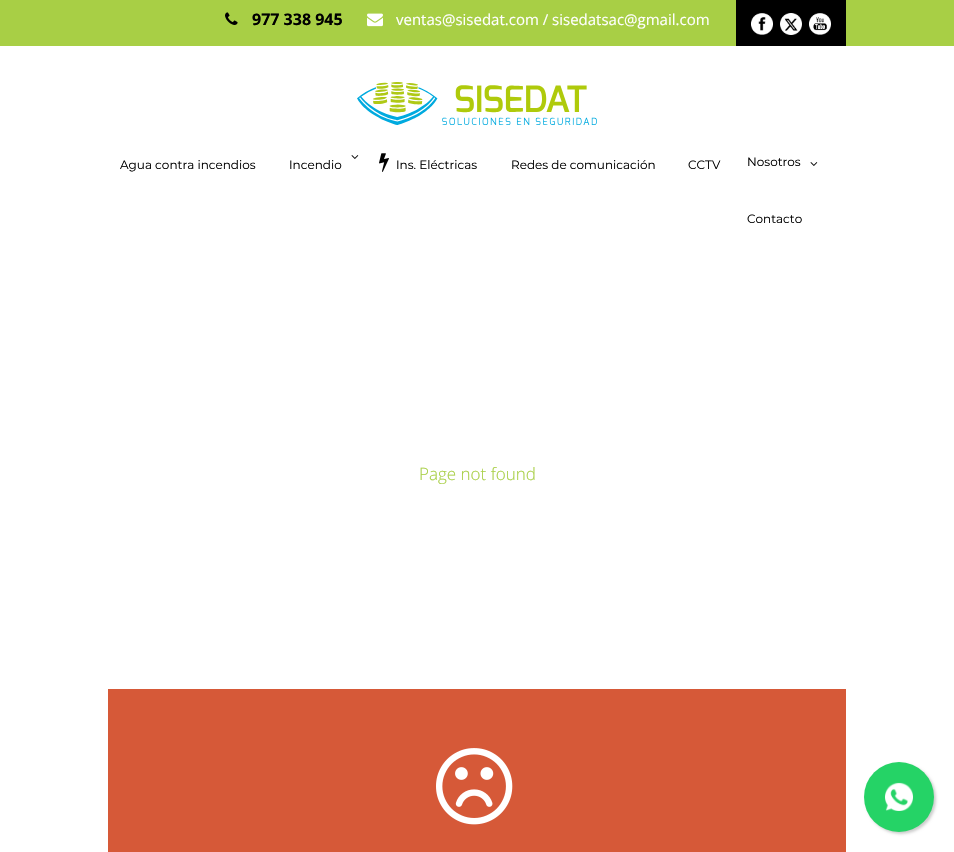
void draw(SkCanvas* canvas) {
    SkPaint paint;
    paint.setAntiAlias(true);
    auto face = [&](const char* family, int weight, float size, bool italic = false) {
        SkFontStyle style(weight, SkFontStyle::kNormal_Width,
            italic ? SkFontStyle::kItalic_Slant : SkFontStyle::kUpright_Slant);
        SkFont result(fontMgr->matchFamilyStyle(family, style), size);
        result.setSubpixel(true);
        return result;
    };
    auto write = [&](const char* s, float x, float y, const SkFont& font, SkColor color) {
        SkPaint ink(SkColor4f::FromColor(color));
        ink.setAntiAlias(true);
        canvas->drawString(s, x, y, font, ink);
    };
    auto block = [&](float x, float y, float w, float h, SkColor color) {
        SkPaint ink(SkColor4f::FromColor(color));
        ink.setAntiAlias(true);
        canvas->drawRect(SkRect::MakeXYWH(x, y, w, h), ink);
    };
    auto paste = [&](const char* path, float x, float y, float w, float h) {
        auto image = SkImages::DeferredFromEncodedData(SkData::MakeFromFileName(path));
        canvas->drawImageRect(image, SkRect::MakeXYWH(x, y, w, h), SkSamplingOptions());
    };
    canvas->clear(SK_ColorWHITE);
    block(0, 0, 954, 46, SkColorSetRGB(168, 207, 69));
    paste("pic1.png", 225, 12, 13, 13);
    auto kFont1 = face("Open Sans", 700, 16);
    write("977 338 945", 252, 25, kFont1, SK_ColorBLACK);
    paste("pic2.png", 367, 13, 16, 14);
    auto kFont2 = face("Open Sans", 400, 15);
    write("ventas@sisedat.com / sisedatsac@gmail.com", 396, 25, kFont2, SK_ColorWHITE);
    block(736, 0, 110, 46, SK_ColorBLACK);
    paste("pic3.png", 751, 13, 22, 22);
    paste("pic4.png", 780, 13, 22, 22);
    paste("pic5.png", 809, 13, 22, 22);
    paste("pic6.png", 357, 82, 240, 43);
    auto kFont3 = face("Montserrat", 400, 12);
    write("Agua contra incendios", 120, 169, kFont3, SK_ColorBLACK);
    paste("pic7.png", 351, 155, 8, 4);
    write("Incendio", 289, 169, kFont3, SK_ColorBLACK);
    paste("pic8.png", 379, 153, 10, 19);
    write("Ins. Eléctricas", 396, 169, kFont3, SK_ColorBLACK);
    write("Redes de comunicación", 511, 169, kFont3, SK_ColorBLACK);
    write("CCTV", 688, 169, kFont3, SK_ColorBLACK);
    write("Nosotros", 747, 166, kFont3, SK_ColorBLACK);
    paste("pic7.png", 810, 162, 8, 4);
    write("Contacto", 747, 223, kFont3, SK_ColorBLACK);
    auto kFont4 = face("Open Sans", 300, 17);
    write("Page not found", 419, 480, kFont4, SkColorSetRGB(168, 207, 69));
    block(108, 689, 738, 163, SkColorSetRGB(214, 89, 56));
    paste("pic9.png", 436, 748, 77, 77);
    paint.setColor(SkColorSetARGB(51, 0, 0, 0));
    paint.setMaskFilter(SkMaskFilter::MakeBlur(kNormal_SkBlurStyle, 1.5f));
    canvas->drawRoundRect(SkRect::MakeXYWH(866, 764, 70, 70), 35, 35, paint);
    paint.setMaskFilter(nullptr);
    paint.setColor(SkColorSetRGB(37, 211, 102));
    canvas->drawCircle(899, 797, 35, paint);
    paste("pic10.png", 885, 782, 28, 29);
}
